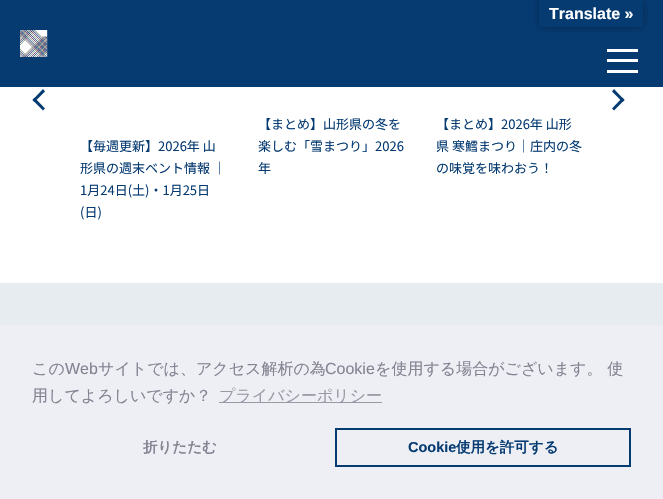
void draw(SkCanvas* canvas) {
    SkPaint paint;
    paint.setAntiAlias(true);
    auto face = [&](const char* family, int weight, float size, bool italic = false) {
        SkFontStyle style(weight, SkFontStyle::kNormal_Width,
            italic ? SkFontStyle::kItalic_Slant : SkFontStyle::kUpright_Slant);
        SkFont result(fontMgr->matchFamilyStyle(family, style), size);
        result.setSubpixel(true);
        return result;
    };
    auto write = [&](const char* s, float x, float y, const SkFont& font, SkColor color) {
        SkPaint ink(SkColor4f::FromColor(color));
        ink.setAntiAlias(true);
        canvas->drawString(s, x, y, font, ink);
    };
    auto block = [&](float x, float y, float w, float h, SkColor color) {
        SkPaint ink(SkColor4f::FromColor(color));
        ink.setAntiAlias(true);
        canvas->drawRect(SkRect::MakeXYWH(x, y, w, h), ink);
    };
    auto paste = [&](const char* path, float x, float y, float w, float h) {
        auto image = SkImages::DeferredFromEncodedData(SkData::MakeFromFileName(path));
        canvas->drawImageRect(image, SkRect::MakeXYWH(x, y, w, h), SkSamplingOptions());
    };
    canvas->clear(SK_ColorWHITE);
    block(0, 0, 663, 87, SkColorSetRGB(6, 59, 114));
    paste("pic1.png", 20, 30, 28, 27);
    block(607, 49, 31, 3, SK_ColorWHITE);
    block(607, 59, 31, 3, SK_ColorWHITE);
    block(607, 70, 31, 3, SK_ColorWHITE);
    canvas->save();
    canvas->clipPath(SkPathBuilder(SkPathFillType::kEvenOdd).moveTo(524, 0).lineTo(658, 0).lineTo(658, 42).lineTo(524, 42).close().moveTo(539, 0).lineTo(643, 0).lineTo(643, 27).lineTo(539, 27).close().detach(), true);
    paint.setColor(SkColorSetARGB(77, 0, 0, 0));
    paint.setMaskFilter(SkMaskFilter::MakeBlur(kNormal_SkBlurStyle, 4.5f));
    canvas->drawRect(SkRect::MakeXYWH(539, 0, 104, 27), paint);
    paint.setMaskFilter(nullptr);
    canvas->restore();
    auto kFont1 = face("Liberation Sans", 700, 16);
    write("Translate »", 549, 19, kFont1, SK_ColorWHITE);
    paint.setColor(SkColorSetRGB(6, 59, 114));
    canvas->drawPath(SkPathBuilder().moveTo(32.5f, 100).lineTo(43, 89).lineTo(45, 91.5f).lineTo(34.5f, 102).close().detach(), paint);
    canvas->drawPath(SkPathBuilder().moveTo(32.5f, 100).lineTo(34.5f, 97.5f).lineTo(45, 108.5f).lineTo(43, 110.5f).close().detach(), paint);
    canvas->drawPath(SkPathBuilder().moveTo(614, 89).lineTo(624.5f, 100).lineTo(622.5f, 102).lineTo(612, 91.5f).close().detach(), paint);
    canvas->drawPath(SkPathBuilder().moveTo(622.5f, 97.5f).lineTo(624.5f, 100).lineTo(614, 110.5f).lineTo(612, 108.5f).close().detach(), paint);
    auto kFont2 = face("Noto Sans JP", 400, 13);
    write("【毎週更新】2026年 山", 80, 151, kFont2, SkColorSetRGB(6, 59, 114));
    write("形県の週末ベント情報 ｜", 80, 173, kFont2, SkColorSetRGB(6, 59, 114));
    write("1月24日(土)・1月25日", 80, 195, kFont2, SkColorSetRGB(6, 59, 114));
    write("(日)", 80, 217, kFont2, SkColorSetRGB(6, 59, 114));
    write("【まとめ】山形県の冬を", 258, 129, kFont2, SkColorSetRGB(6, 59, 114));
    write("楽しむ「雪まつり」2026", 258, 151, kFont2, SkColorSetRGB(6, 59, 114));
    write("年", 258, 173, kFont2, SkColorSetRGB(6, 59, 114));
    write("【まとめ】2026年 山形", 436, 129, kFont2, SkColorSetRGB(6, 59, 114));
    write("県 寒鱈まつり｜庄内の冬", 436, 151, kFont2, SkColorSetRGB(6, 59, 114));
    write("の味覚を味わおう！", 436, 173, kFont2, SkColorSetRGB(6, 59, 114));
    block(0, 283, 663, 42, SkColorSetRGB(231, 236, 241));
    block(0, 325, 663, 174, SkColorSetRGB(237, 239, 245));
    auto kFont3 = face("WenQuanYi Zen Hei", 500, 16);
    write("この", 32, 374, kFont3, SkColorSetRGB(131, 131, 145));
    auto kFont4 = face("Liberation Sans", 400, 16);
    write("Web", 65, 374, kFont4, SkColorSetRGB(131, 131, 145));
    write("サイトでは、アクセス解析の為", 98, 374, kFont3, SkColorSetRGB(131, 131, 145));
    write("Cookie", 325, 374, kFont4, SkColorSetRGB(131, 131, 145));
    write("を使用する場合がございます。 使", 375, 374, kFont3, SkColorSetRGB(131, 131, 145));
    write("用してよろしいですか？", 32, 401, kFont3, SkColorSetRGB(131, 131, 145));
    block(219, 402, 163, 1, SkColorSetRGB(152, 153, 165));
    write("プライバシーポリシー", 219, 401, kFont3, SkColorSetRGB(152, 153, 165));
    auto kFont5 = face("WenQuanYi Zen Hei", 700, 14.5f);
    write("折りたたむ", 143, 452, kFont5, SkColorSetRGB(131, 131, 145));
    paint.setStyle(SkPaint::kStroke_Style);
    paint.setStrokeWidth(2);
    canvas->drawRect(SkRect::MakeXYWH(336, 429, 294, 37), paint);
    auto kFont6 = face("Liberation Sans", 700, 14.5f);
    write("Cookie", 408, 452, kFont6, SkColorSetRGB(6, 59, 114));
    write("使用を許可する", 456, 452, kFont5, SkColorSetRGB(6, 59, 114));
}
